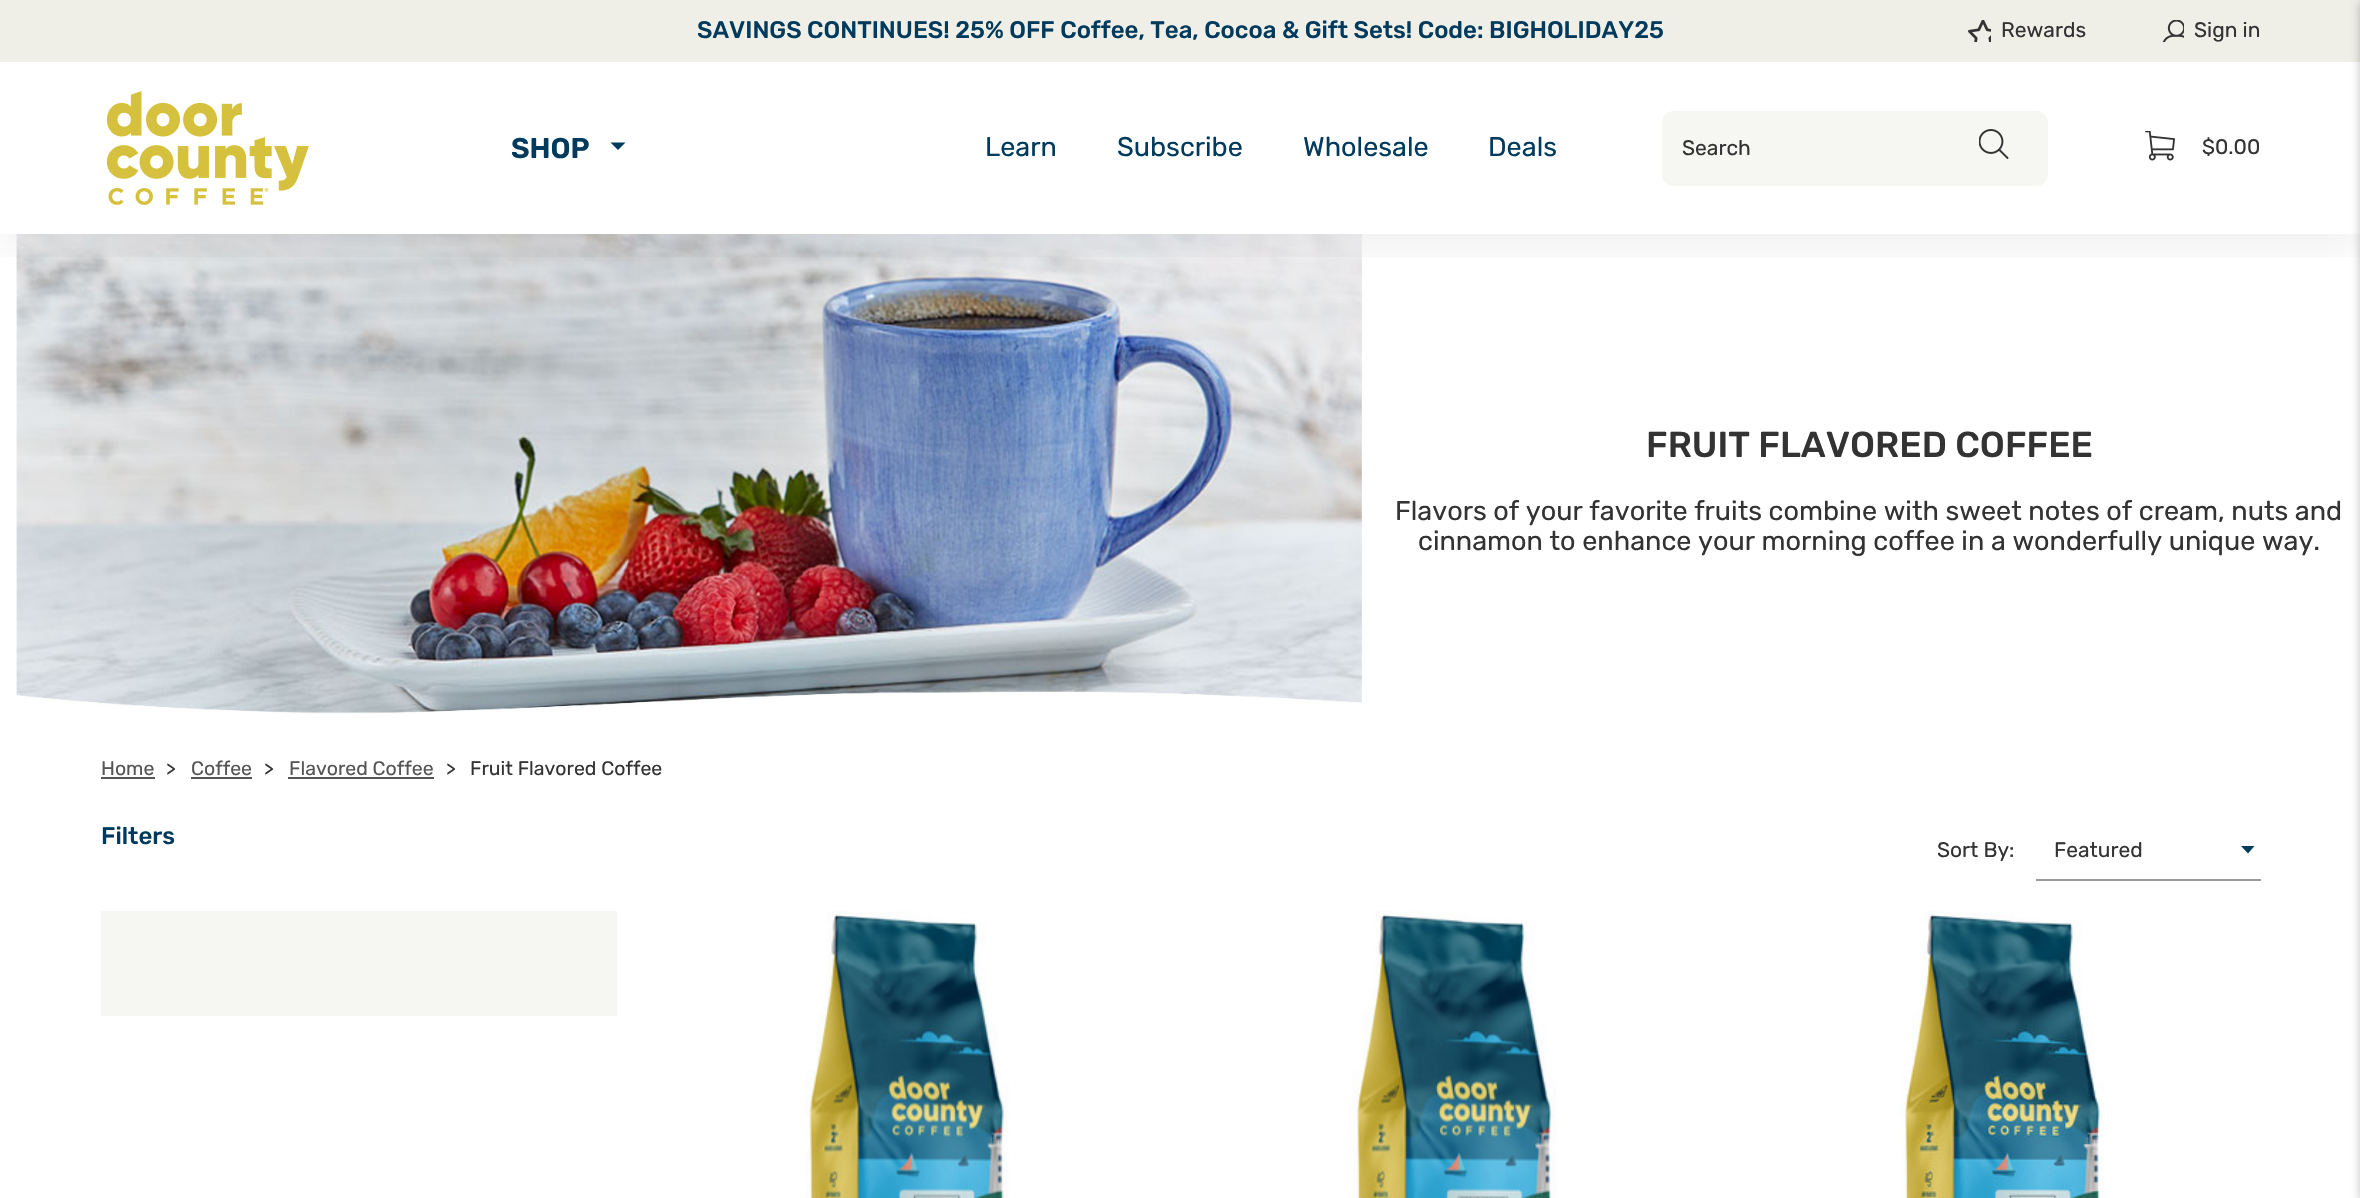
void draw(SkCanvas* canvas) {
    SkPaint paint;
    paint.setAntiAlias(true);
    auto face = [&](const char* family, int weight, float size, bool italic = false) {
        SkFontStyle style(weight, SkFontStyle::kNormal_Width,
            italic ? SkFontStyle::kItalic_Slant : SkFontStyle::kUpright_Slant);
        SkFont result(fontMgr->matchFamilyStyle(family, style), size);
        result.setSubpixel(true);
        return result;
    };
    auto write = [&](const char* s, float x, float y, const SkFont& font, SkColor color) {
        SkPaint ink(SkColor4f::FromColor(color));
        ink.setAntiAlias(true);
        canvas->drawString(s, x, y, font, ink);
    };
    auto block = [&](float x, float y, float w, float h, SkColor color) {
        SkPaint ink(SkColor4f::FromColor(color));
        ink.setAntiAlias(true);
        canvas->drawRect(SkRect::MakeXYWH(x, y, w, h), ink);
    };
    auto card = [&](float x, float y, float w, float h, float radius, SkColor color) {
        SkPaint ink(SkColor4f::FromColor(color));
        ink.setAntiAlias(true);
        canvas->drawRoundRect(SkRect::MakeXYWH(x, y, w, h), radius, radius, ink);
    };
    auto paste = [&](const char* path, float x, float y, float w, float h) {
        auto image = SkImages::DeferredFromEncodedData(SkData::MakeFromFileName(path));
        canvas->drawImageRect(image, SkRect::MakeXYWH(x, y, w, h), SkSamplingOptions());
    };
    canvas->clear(SK_ColorWHITE);
    block(0, 0, 2360, 62, SkColorSetRGB(239, 239, 232));
    auto kFont1 = face("Rubik", 500, 24);
    write("SAVINGS CONTINUES! 25% OFF Coffee, Tea, Cocoa & Gift Sets! Code: BIGHOLIDAY25", 697, 38, kFont1, SkColorSetRGB(0, 58, 93));
    paste("pic1.png", 1968, 20, 23, 22);
    auto kFont2 = face("Rubik", 400, 21);
    write("Rewards", 2001, 37, kFont2, SkColorSetRGB(51, 51, 51));
    paste("pic2.png", 2162, 20, 22, 22);
    write("Sign in", 2194, 37, kFont2, SkColorSetRGB(51, 51, 51));
    paste("pic6.png", 16, 234, 1346, 480);
    canvas->save();
    canvas->clipRect(SkRect::MakeXYWH(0, 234, 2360, 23));
    paint.setColor(SkColorSetARGB(15, 0, 0, 0));
    paint.setMaskFilter(SkMaskFilter::MakeBlur(kNormal_SkBlurStyle, 21));
    canvas->drawRect(SkRect::MakeXYWH(0, 75, 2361, 173), paint);
    paint.setMaskFilter(nullptr);
    canvas->restore();
    paste("pic3.png", 106, 91, 203, 114);
    auto kFont3 = face("Rubik", 600, 28.5f);
    write("SHOP", 511, 158, kFont3, SkColorSetRGB(0, 58, 93));
    paint.setColor(SkColorSetRGB(0, 58, 93));
    canvas->drawPath(SkPathBuilder().moveTo(610.5f, 142.5f).lineTo(625.5f, 142.5f).lineTo(618, 150).close().detach(), paint);
    auto kFont4 = face("Rubik", 400, 27);
    write("Learn", 985, 156, kFont4, SkColorSetRGB(0, 58, 93));
    write("Subscribe", 1117, 156, kFont4, SkColorSetRGB(0, 58, 93));
    write("Wholesale", 1303, 156, kFont4, SkColorSetRGB(0, 58, 93));
    write("Deals", 1488, 156, kFont4, SkColorSetRGB(0, 58, 93));
    card(1662, 111, 386, 75, 12, SkColorSetRGB(246, 246, 242));
    write("Search", 1682, 155, kFont2, SkColorSetRGB(51, 51, 51));
    paste("pic4.png", 1979, 129, 30, 30);
    paste("pic5.png", 2145, 131, 30, 30);
    write("$0.00", 2202, 154, kFont2, SkColorSetRGB(51, 51, 51));
    paint.setColor(SkColorSetARGB(64, 0, 0, 0));
    paint.setMaskFilter(SkMaskFilter::MakeBlur(kNormal_SkBlurStyle, 5));
    canvas->drawRect(SkRect::MakeXYWH(2360, 2, 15, 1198), paint);
    paint.setMaskFilter(nullptr);
    auto kFont5 = face("Rubik", 500, 36);
    write("FRUIT FLAVORED COFFEE", 1646, 457, kFont5, SkColorSetRGB(51, 51, 51));
    write("Flavors of your favorite fruits combine with sweet notes of cream, nuts and", 1395, 520, kFont4, SkColorSetRGB(51, 51, 51));
    write("cinnamon to enhance your morning coffee in a wonderfully unique way.", 1418, 550, kFont4, SkColorSetRGB(51, 51, 51));
    auto kFont6 = face("Rubik", 400, 19.5f);
    write("Home", 101, 775, kFont6, SkColorSetRGB(85, 85, 85));
    block(101, 777, 54, 2, SkColorSetRGB(85, 85, 85));
    write(">", 166, 775, kFont6, SkColorSetRGB(51, 51, 51));
    write("Coffee", 191, 775, kFont6, SkColorSetRGB(85, 85, 85));
    block(191, 777, 61, 2, SkColorSetRGB(85, 85, 85));
    write(">", 264, 775, kFont6, SkColorSetRGB(51, 51, 51));
    write("Flavored Coffee", 289, 775, kFont6, SkColorSetRGB(85, 85, 85));
    block(288, 777, 146, 2, SkColorSetRGB(85, 85, 85));
    write(">", 446, 775, kFont6, SkColorSetRGB(51, 51, 51));
    write("Fruit Flavored Coffee", 470, 775, kFont6, SkColorSetRGB(51, 51, 51));
    write("Filters", 101, 844, kFont1, SkColorSetRGB(0, 58, 93));
    block(101, 911, 516, 105, SkColorSetRGB(246, 246, 242));
    write("Sort By:", 1937, 857, kFont2, SkColorSetRGB(51, 51, 51));
    paint.setColor(SkColorSetRGB(0, 58, 93));
    canvas->drawPath(SkPathBuilder().moveTo(2241, 846).lineTo(2254.5f, 846).lineTo(2248, 853.5f).close().detach(), paint);
    block(2036, 879, 225, 2, SkColorSetRGB(153, 153, 153));
    write("Featured", 2054, 857, kFont2, SkColorSetRGB(51, 51, 51));
    paste("pic7.png", 805, 911, 204, 287);
    paste("pic8.png", 1352, 911, 205, 287);
    paste("pic9.png", 1900, 911, 205, 287);
}
